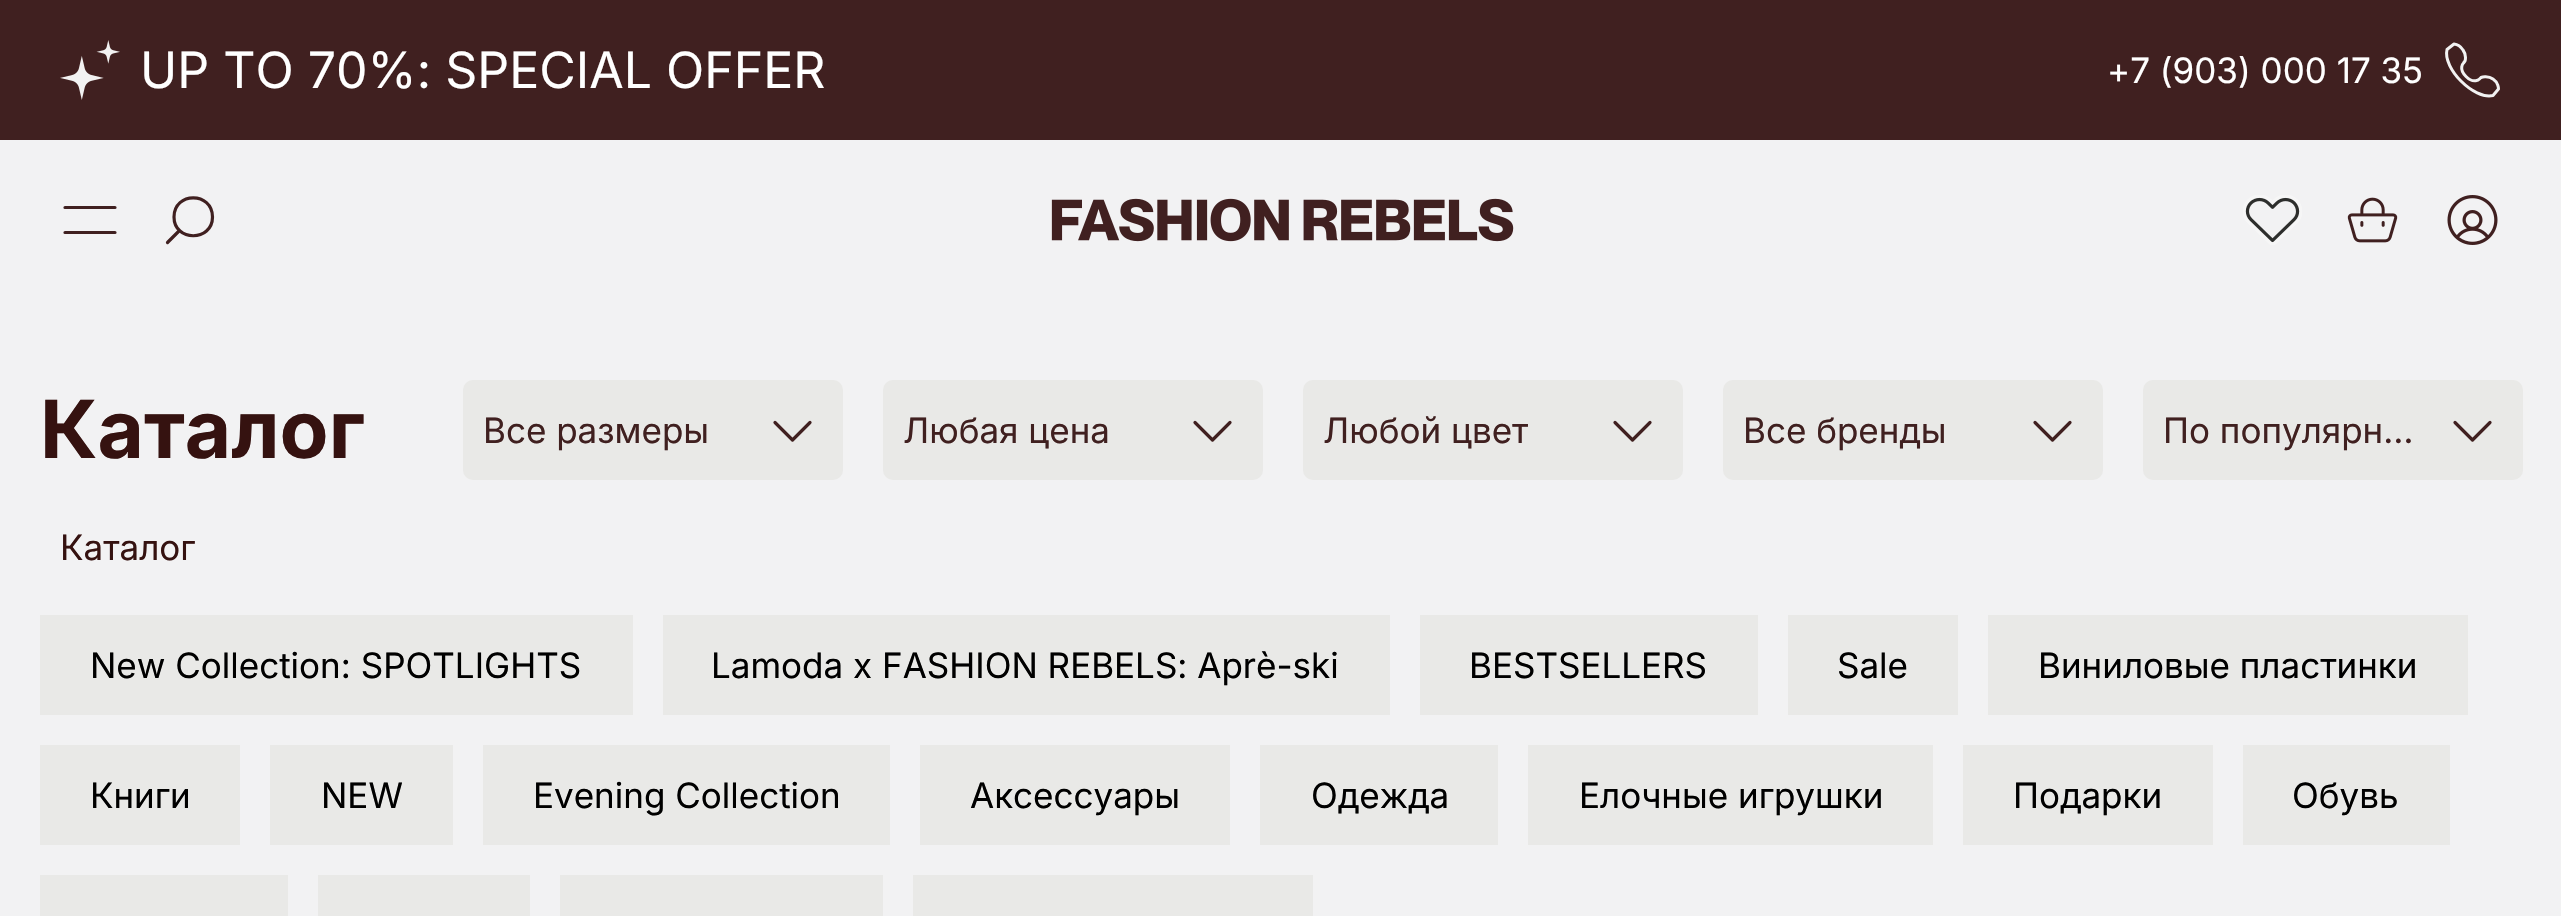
void draw(SkCanvas* canvas) {
    SkPaint paint;
    paint.setAntiAlias(true);
    auto face = [&](const char* family, int weight, float size, bool italic = false) {
        SkFontStyle style(weight, SkFontStyle::kNormal_Width,
            italic ? SkFontStyle::kItalic_Slant : SkFontStyle::kUpright_Slant);
        SkFont result(fontMgr->matchFamilyStyle(family, style), size);
        result.setSubpixel(true);
        return result;
    };
    auto write = [&](const char* s, float x, float y, const SkFont& font, SkColor color) {
        SkPaint ink(SkColor4f::FromColor(color));
        ink.setAntiAlias(true);
        canvas->drawString(s, x, y, font, ink);
    };
    auto block = [&](float x, float y, float w, float h, SkColor color) {
        SkPaint ink(SkColor4f::FromColor(color));
        ink.setAntiAlias(true);
        canvas->drawRect(SkRect::MakeXYWH(x, y, w, h), ink);
    };
    auto card = [&](float x, float y, float w, float h, float radius, SkColor color) {
        SkPaint ink(SkColor4f::FromColor(color));
        ink.setAntiAlias(true);
        canvas->drawRoundRect(SkRect::MakeXYWH(x, y, w, h), radius, radius, ink);
    };
    auto paste = [&](const char* path, float x, float y, float w, float h) {
        auto image = SkImages::DeferredFromEncodedData(SkData::MakeFromFileName(path));
        canvas->drawImageRect(image, SkRect::MakeXYWH(x, y, w, h), SkSamplingOptions());
    };
    canvas->clear(SkColorSetRGB(242, 242, 243));
    block(0, 0, 2561, 140, SkColorSetRGB(64, 32, 32));
    paste("pic1.png", 60, 40, 60, 60);
    auto kFont1 = face("Inter", 400, 50);
    write("UP TO 70%: SPECIAL OFFER", 140, 88, kFont1, SK_ColorWHITE);
    paint.setStyle(SkPaint::kStroke_Style);
    paint.setStrokeWidth(3);
    paint.setStrokeJoin(SkPaint::kRound_Join);
    paint.setColor(SkColorSetRGB(242, 242, 242));
    canvas->drawPath(SkPathBuilder().moveTo(2466, 76.5f).cubicTo(2474, 84.5f, 2479.5f, 79, 2479.5f, 79).lineTo(2481, 77.5f).cubicTo(2481, 77.5f, 2487.5f, 75, 2493, 79).cubicTo(2498.5f, 82.5f, 2498.5f, 89, 2498.5f, 89).lineTo(2493, 95.5f).cubicTo(2474, 100, 2442.5f, 68.5f, 2447, 49.5f).lineTo(2454, 44).cubicTo(2454, 44, 2459.5f, 44.5f, 2463, 50).cubicTo(2467, 55.5f, 2465, 61, 2465, 61).lineTo(2463.5f, 63).cubicTo(2463.5f, 63, 2458, 68.5f, 2466, 76.5f).close().detach(), paint);
    auto kFont2 = face("Inter", 400, 35);
    write("+7 (903) 000 17 35", 2107, 83, kFont2, SK_ColorWHITE);
    paint.setStrokeWidth(3.2f);
    paint.setStrokeCap(SkPaint::kRound_Cap);
    paint.setColor(SkColorSetRGB(64, 32, 32));
    canvas->drawPath(SkPathBuilder().moveTo(65, 207.5f).lineTo(115, 207.5f).moveTo(65, 232.5f).lineTo(115, 232.5f).detach(), paint);
    paint.setStrokeJoin(SkPaint::kMiter_Join);
    canvas->drawPath(SkPathBuilder().moveTo(167.5f, 242.5f).lineTo(179.5f, 230.5f).moveTo(212.5f, 217).cubicTo(212.5f, 242, 174, 242, 174, 217).cubicTo(174, 191.5f, 212.5f, 191.5f, 212.5f, 217).close().detach(), paint);
    paste("pic2.png", 1051, 198, 463, 44);
    paste("pic3.png", 2243, 195, 59, 50);
    paste("pic4.png", 2347, 197, 51, 46);
    paste("pic5.png", 2447, 195, 51, 50);
    auto kFont3 = face("Inter", 700, 80);
    write("Каталог", 40, 458, kFont3, SkColorSetRGB(53, 18, 16));
    card(463, 380, 380, 100, 10, SkColorSetRGB(233, 233, 231));
    paint.setStrokeJoin(SkPaint::kRound_Join);
    canvas->drawPath(SkPathBuilder().moveTo(775, 422.5f).lineTo(792.5f, 440).lineTo(810, 422.5f).detach(), paint);
    write("Все размеры", 483, 443, kFont2, SkColorSetRGB(64, 32, 32));
    card(883, 380, 380, 100, 10, SkColorSetRGB(233, 233, 231));
    canvas->drawPath(SkPathBuilder().moveTo(1195, 422.5f).lineTo(1212.5f, 440).lineTo(1230, 422.5f).detach(), paint);
    write("Любая цена", 903, 443, kFont2, SkColorSetRGB(64, 32, 32));
    card(1303, 380, 380, 100, 10, SkColorSetRGB(233, 233, 231));
    canvas->drawPath(SkPathBuilder().moveTo(1615, 422.5f).lineTo(1632.5f, 440).lineTo(1650, 422.5f).detach(), paint);
    write("Любой цвет", 1323, 443, kFont2, SkColorSetRGB(64, 32, 32));
    card(1723, 380, 380, 100, 10, SkColorSetRGB(233, 233, 231));
    canvas->drawPath(SkPathBuilder().moveTo(2035, 422.5f).lineTo(2052.5f, 440).lineTo(2070, 422.5f).detach(), paint);
    write("Все бренды", 1743, 443, kFont2, SkColorSetRGB(64, 32, 32));
    card(2143, 380, 380, 100, 10, SkColorSetRGB(233, 233, 231));
    canvas->drawPath(SkPathBuilder().moveTo(2455, 422.5f).lineTo(2472.5f, 440).lineTo(2490, 422.5f).detach(), paint);
    write("По популярн…", 2163, 443, kFont2, SkColorSetRGB(64, 32, 32));
    write("Каталог", 60, 560, kFont2, SkColorSetRGB(53, 18, 16));
    block(40, 615, 593, 100, SkColorSetRGB(233, 233, 231));
    write("New Collection: SPOTLIGHTS", 90, 678, kFont2, SK_ColorBLACK);
    block(663, 615, 727, 100, SkColorSetRGB(233, 233, 231));
    write("Lamoda х FASHION REBELS: Aprè-ski", 711, 678, kFont2, SK_ColorBLACK);
    block(1420, 615, 338, 100, SkColorSetRGB(233, 233, 231));
    write("BESTSELLERS", 1469, 678, kFont2, SK_ColorBLACK);
    block(1788, 615, 170, 100, SkColorSetRGB(233, 233, 231));
    write("Sale", 1837, 678, kFont2, SK_ColorBLACK);
    block(1988, 615, 480, 100, SkColorSetRGB(233, 233, 231));
    write("Виниловые пластинки", 2038, 678, kFont2, SK_ColorBLACK);
    block(40, 745, 200, 100, SkColorSetRGB(233, 233, 231));
    write("Книги", 90, 808, kFont2, SK_ColorBLACK);
    block(270, 745, 183, 100, SkColorSetRGB(233, 233, 231));
    write("NEW", 321, 808, kFont2, SK_ColorBLACK);
    block(483, 745, 407, 100, SkColorSetRGB(233, 233, 231));
    write("Evening Collection", 533, 808, kFont2, SK_ColorBLACK);
    block(920, 745, 310, 100, SkColorSetRGB(233, 233, 231));
    write("Аксессуары", 970, 808, kFont2, SK_ColorBLACK);
    block(1260, 745, 238, 100, SkColorSetRGB(233, 233, 231));
    write("Одежда", 1311, 808, kFont2, SK_ColorBLACK);
    block(1528, 745, 405, 100, SkColorSetRGB(233, 233, 231));
    write("Елочные игрушки", 1579, 808, kFont2, SK_ColorBLACK);
    block(1963, 745, 250, 100, SkColorSetRGB(233, 233, 231));
    write("Подарки", 2013, 808, kFont2, SK_ColorBLACK);
    block(2243, 745, 207, 100, SkColorSetRGB(233, 233, 231));
    write("Обувь", 2292, 808, kFont2, SK_ColorBLACK);
    block(40, 875, 248, 41, SkColorSetRGB(233, 233, 231));
    block(318, 875, 212, 41, SkColorSetRGB(233, 233, 231));
    block(560, 875, 323, 41, SkColorSetRGB(233, 233, 231));
    block(913, 875, 400, 41, SkColorSetRGB(233, 233, 231));
}
